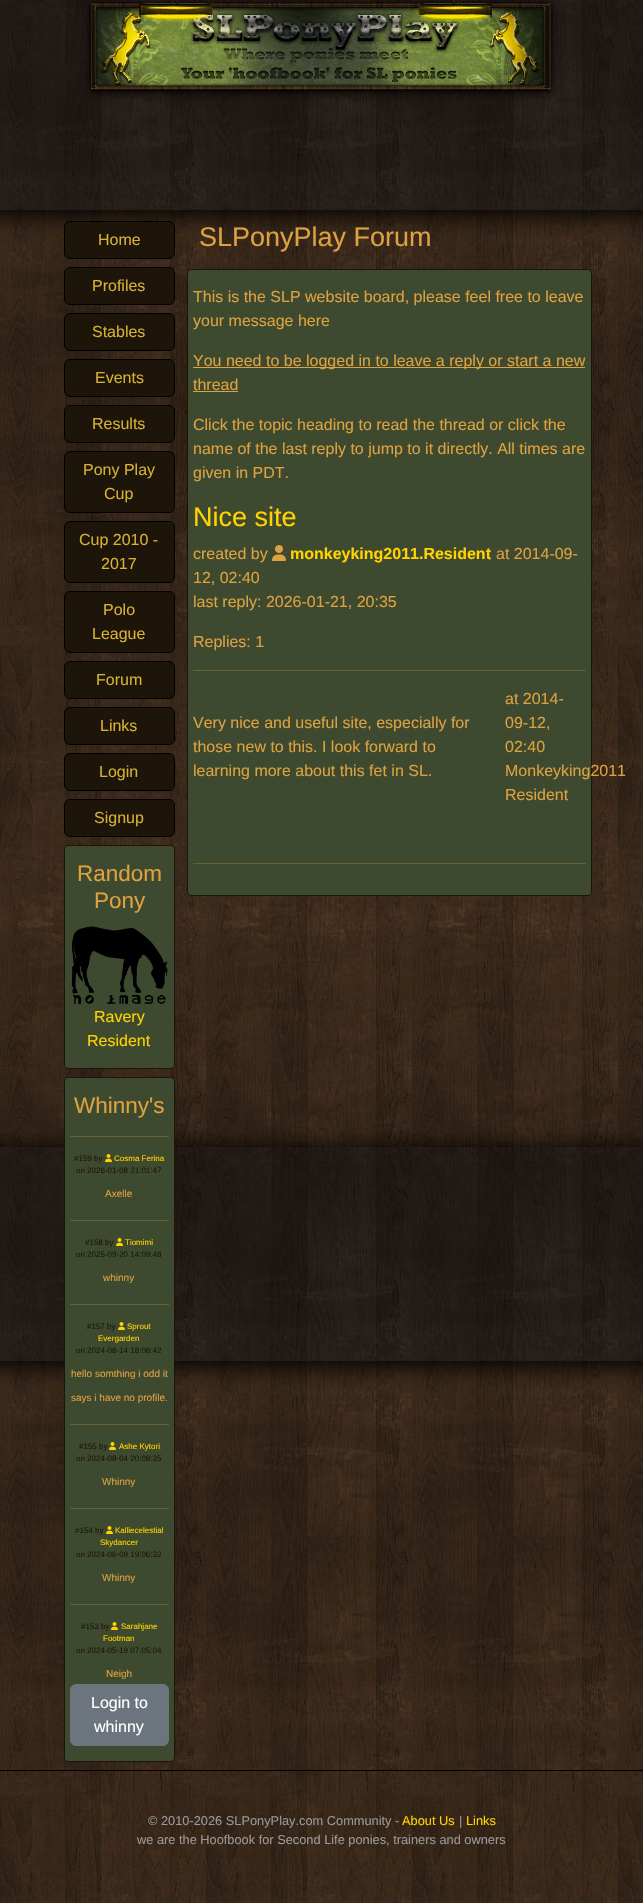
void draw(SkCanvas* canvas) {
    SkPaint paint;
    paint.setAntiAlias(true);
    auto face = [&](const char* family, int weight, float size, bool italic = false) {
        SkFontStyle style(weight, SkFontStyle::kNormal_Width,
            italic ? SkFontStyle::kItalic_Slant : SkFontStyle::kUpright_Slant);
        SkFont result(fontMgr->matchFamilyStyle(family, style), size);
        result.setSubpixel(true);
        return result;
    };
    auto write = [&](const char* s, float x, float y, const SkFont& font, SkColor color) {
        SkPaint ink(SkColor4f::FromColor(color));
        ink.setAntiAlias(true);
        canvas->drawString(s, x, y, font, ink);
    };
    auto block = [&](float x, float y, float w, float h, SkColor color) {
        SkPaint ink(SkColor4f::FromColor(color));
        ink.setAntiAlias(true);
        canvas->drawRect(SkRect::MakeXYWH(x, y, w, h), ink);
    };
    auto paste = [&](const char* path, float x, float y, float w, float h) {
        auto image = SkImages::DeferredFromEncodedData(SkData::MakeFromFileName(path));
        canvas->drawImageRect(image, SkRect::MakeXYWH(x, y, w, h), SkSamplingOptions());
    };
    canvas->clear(SK_ColorWHITE);
    paste("pic1.png", 0, 0, 643, 1903);
    paste("pic2.png", 85, 0, 473, 100);
    paint.setColor(SkColorSetRGB(29, 20, 10));
    canvas->drawRoundRect(SkRect::MakeXYWH(64.5f, 221.5f, 110, 37), 5.5f, 5.5f, paint);
    paint.setStyle(SkPaint::kStroke_Style);
    paint.setStrokeWidth(1);
    paint.setColor(SK_ColorBLACK);
    canvas->drawRoundRect(SkRect::MakeXYWH(64.5f, 221.5f, 110, 37), 5.5f, 5.5f, paint);
    auto kFont1 = face("Liberation Sans", 400, 16);
    write("Home", 98, 245, kFont1, SkColorSetRGB(213, 178, 50));
    paint.setStyle(SkPaint::kFill_Style);
    paint.setColor(SkColorSetRGB(29, 20, 10));
    canvas->drawRoundRect(SkRect::MakeXYWH(64.5f, 267.5f, 110, 37), 5.5f, 5.5f, paint);
    paint.setStyle(SkPaint::kStroke_Style);
    paint.setColor(SK_ColorBLACK);
    canvas->drawRoundRect(SkRect::MakeXYWH(64.5f, 267.5f, 110, 37), 5.5f, 5.5f, paint);
    write("Profiles", 92, 291, kFont1, SkColorSetRGB(213, 178, 50));
    paint.setStyle(SkPaint::kFill_Style);
    paint.setColor(SkColorSetRGB(29, 20, 10));
    canvas->drawRoundRect(SkRect::MakeXYWH(64.5f, 313.5f, 110, 37), 5.5f, 5.5f, paint);
    paint.setStyle(SkPaint::kStroke_Style);
    paint.setColor(SK_ColorBLACK);
    canvas->drawRoundRect(SkRect::MakeXYWH(64.5f, 313.5f, 110, 37), 5.5f, 5.5f, paint);
    write("Stables", 92, 337, kFont1, SkColorSetRGB(213, 178, 50));
    paint.setStyle(SkPaint::kFill_Style);
    paint.setColor(SkColorSetRGB(29, 20, 10));
    canvas->drawRoundRect(SkRect::MakeXYWH(64.5f, 359.5f, 110, 37), 5.5f, 5.5f, paint);
    paint.setStyle(SkPaint::kStroke_Style);
    paint.setColor(SK_ColorBLACK);
    canvas->drawRoundRect(SkRect::MakeXYWH(64.5f, 359.5f, 110, 37), 5.5f, 5.5f, paint);
    write("Events", 95, 383, kFont1, SkColorSetRGB(213, 178, 50));
    paint.setStyle(SkPaint::kFill_Style);
    paint.setColor(SkColorSetRGB(29, 20, 10));
    canvas->drawRoundRect(SkRect::MakeXYWH(64.5f, 405.5f, 110, 37), 5.5f, 5.5f, paint);
    paint.setStyle(SkPaint::kStroke_Style);
    paint.setColor(SK_ColorBLACK);
    canvas->drawRoundRect(SkRect::MakeXYWH(64.5f, 405.5f, 110, 37), 5.5f, 5.5f, paint);
    write("Results", 92, 429, kFont1, SkColorSetRGB(213, 178, 50));
    paint.setStyle(SkPaint::kFill_Style);
    paint.setColor(SkColorSetRGB(29, 20, 10));
    canvas->drawRoundRect(SkRect::MakeXYWH(64.5f, 451.5f, 110, 61), 5.5f, 5.5f, paint);
    paint.setStyle(SkPaint::kStroke_Style);
    paint.setColor(SK_ColorBLACK);
    canvas->drawRoundRect(SkRect::MakeXYWH(64.5f, 451.5f, 110, 61), 5.5f, 5.5f, paint);
    write("Pony Play", 83, 475, kFont1, SkColorSetRGB(213, 178, 50));
    write("Cup", 104, 499, kFont1, SkColorSetRGB(213, 178, 50));
    paint.setStyle(SkPaint::kFill_Style);
    paint.setColor(SkColorSetRGB(29, 20, 10));
    canvas->drawRoundRect(SkRect::MakeXYWH(64.5f, 521.5f, 110, 61), 5.5f, 5.5f, paint);
    paint.setStyle(SkPaint::kStroke_Style);
    paint.setColor(SK_ColorBLACK);
    canvas->drawRoundRect(SkRect::MakeXYWH(64.5f, 521.5f, 110, 61), 5.5f, 5.5f, paint);
    write("Cup 2010 -", 79, 545, kFont1, SkColorSetRGB(213, 178, 50));
    write("2017", 101, 569, kFont1, SkColorSetRGB(213, 178, 50));
    paint.setStyle(SkPaint::kFill_Style);
    paint.setColor(SkColorSetRGB(29, 20, 10));
    canvas->drawRoundRect(SkRect::MakeXYWH(64.5f, 591.5f, 110, 61), 5.5f, 5.5f, paint);
    paint.setStyle(SkPaint::kStroke_Style);
    paint.setColor(SK_ColorBLACK);
    canvas->drawRoundRect(SkRect::MakeXYWH(64.5f, 591.5f, 110, 61), 5.5f, 5.5f, paint);
    write("Polo", 103, 615, kFont1, SkColorSetRGB(213, 178, 50));
    write("League", 92, 639, kFont1, SkColorSetRGB(213, 178, 50));
    paint.setStyle(SkPaint::kFill_Style);
    paint.setColor(SkColorSetRGB(29, 20, 10));
    canvas->drawRoundRect(SkRect::MakeXYWH(64.5f, 661.5f, 110, 37), 5.5f, 5.5f, paint);
    paint.setStyle(SkPaint::kStroke_Style);
    paint.setColor(SK_ColorBLACK);
    canvas->drawRoundRect(SkRect::MakeXYWH(64.5f, 661.5f, 110, 37), 5.5f, 5.5f, paint);
    write("Forum", 96, 685, kFont1, SkColorSetRGB(213, 178, 50));
    paint.setStyle(SkPaint::kFill_Style);
    paint.setColor(SkColorSetRGB(29, 20, 10));
    canvas->drawRoundRect(SkRect::MakeXYWH(64.5f, 707.5f, 110, 37), 5.5f, 5.5f, paint);
    paint.setStyle(SkPaint::kStroke_Style);
    paint.setColor(SK_ColorBLACK);
    canvas->drawRoundRect(SkRect::MakeXYWH(64.5f, 707.5f, 110, 37), 5.5f, 5.5f, paint);
    write("Links", 100, 731, kFont1, SkColorSetRGB(213, 178, 50));
    paint.setStyle(SkPaint::kFill_Style);
    paint.setColor(SkColorSetRGB(29, 20, 10));
    canvas->drawRoundRect(SkRect::MakeXYWH(64.5f, 753.5f, 110, 37), 5.5f, 5.5f, paint);
    paint.setStyle(SkPaint::kStroke_Style);
    paint.setColor(SK_ColorBLACK);
    canvas->drawRoundRect(SkRect::MakeXYWH(64.5f, 753.5f, 110, 37), 5.5f, 5.5f, paint);
    write("Login", 99, 777, kFont1, SkColorSetRGB(213, 178, 50));
    paint.setStyle(SkPaint::kFill_Style);
    paint.setColor(SkColorSetRGB(29, 20, 10));
    canvas->drawRoundRect(SkRect::MakeXYWH(64.5f, 799.5f, 110, 37), 5.5f, 5.5f, paint);
    paint.setStyle(SkPaint::kStroke_Style);
    paint.setColor(SK_ColorBLACK);
    canvas->drawRoundRect(SkRect::MakeXYWH(64.5f, 799.5f, 110, 37), 5.5f, 5.5f, paint);
    write("Signup", 94, 823, kFont1, SkColorSetRGB(213, 178, 50));
    paint.setStyle(SkPaint::kFill_Style);
    paint.setColor(SkColorSetRGB(62, 74, 47));
    canvas->drawRoundRect(SkRect::MakeXYWH(64.5f, 845.5f, 110, 223), 3.5f, 3.5f, paint);
    paint.setStyle(SkPaint::kStroke_Style);
    paint.setColor(SkColorSetRGB(29, 20, 10));
    canvas->drawRoundRect(SkRect::MakeXYWH(64.5f, 845.5f, 110, 223), 3.5f, 3.5f, paint);
    auto kFont2 = face("Liberation Sans", 400, 22.5f);
    write("Random", 77, 881, kFont2, SkColorSetRGB(221, 161, 64));
    write("Pony", 94, 908, kFont2, SkColorSetRGB(221, 161, 64));
    paste("pic3.png", 71, 926, 97, 78);
    write("Ravery", 94, 1022, kFont1, SkColorSetRGB(255, 210, 0));
    write("Resident", 87, 1046, kFont1, SkColorSetRGB(255, 210, 0));
    paint.setStyle(SkPaint::kFill_Style);
    paint.setColor(SkColorSetRGB(62, 74, 47));
    canvas->drawRoundRect(SkRect::MakeXYWH(64.5f, 1077.5f, 110, 684), 3.5f, 3.5f, paint);
    paint.setStyle(SkPaint::kStroke_Style);
    paint.setColor(SkColorSetRGB(29, 20, 10));
    canvas->drawRoundRect(SkRect::MakeXYWH(64.5f, 1077.5f, 110, 684), 3.5f, 3.5f, paint);
    write("Whinny's", 74, 1113, kFont2, SkColorSetRGB(221, 161, 64));
    block(70, 1136, 99, 1, SkColorSetRGB(102, 96, 51));
    auto kFont3 = face("Liberation Sans", 400, 8);
    write("#159 by", 74, 1161, kFont3, SkColorSetRGB(29, 20, 10));
    paste("pic4.png", 105, 1154, 7, 8);
    write("Cosma Ferina", 114, 1161, kFont3, SkColorSetRGB(255, 210, 0));
    write("on 2026-01-08 21:01:47", 76, 1173, kFont3, SkColorSetRGB(29, 20, 10));
    auto kFont4 = face("Liberation Sans", 400, 10);
    write("Axelle", 105, 1197, kFont4, SkColorSetRGB(221, 161, 64));
    block(70, 1220, 99, 1, SkColorSetRGB(102, 96, 51));
    write("#158 by", 85, 1245, kFont3, SkColorSetRGB(29, 20, 10));
    paste("pic4.png", 116, 1238, 7, 8);
    write("Tiomimi", 125, 1245, kFont3, SkColorSetRGB(255, 210, 0));
    write("on 2025-09-20 14:09:48", 76, 1257, kFont3, SkColorSetRGB(29, 20, 10));
    write("whinny", 103, 1281, kFont4, SkColorSetRGB(221, 161, 64));
    block(70, 1304, 99, 1, SkColorSetRGB(102, 96, 51));
    write("#157 by", 87, 1329, kFont3, SkColorSetRGB(29, 20, 10));
    paste("pic4.png", 118, 1322, 7, 8);
    write("Sprout", 127, 1329, kFont3, SkColorSetRGB(255, 210, 0));
    write("Evergarden", 98, 1341, kFont3, SkColorSetRGB(255, 210, 0));
    write("on 2024-08-14 18:08:42", 76, 1353, kFont3, SkColorSetRGB(29, 20, 10));
    write("hello somthing i odd it", 71, 1377, kFont4, SkColorSetRGB(221, 161, 64));
    write("says i have no profile.", 71, 1401, kFont4, SkColorSetRGB(221, 161, 64));
    block(70, 1424, 99, 1, SkColorSetRGB(102, 96, 51));
    write("#155 by", 79, 1449, kFont3, SkColorSetRGB(29, 20, 10));
    paste("pic4.png", 109, 1442, 7, 8);
    write("Ashe Kytori", 119, 1449, kFont3, SkColorSetRGB(255, 210, 0));
    write("on 2024-08-04 20:08:35", 76, 1461, kFont3, SkColorSetRGB(29, 20, 10));
    write("Whinny", 102, 1485, kFont4, SkColorSetRGB(221, 161, 64));
    block(70, 1508, 99, 1, SkColorSetRGB(102, 96, 51));
    write("#154 by", 75, 1533, kFont3, SkColorSetRGB(29, 20, 10));
    paste("pic4.png", 106, 1526, 7, 8);
    write("Kalliecelestial", 115, 1533, kFont3, SkColorSetRGB(255, 210, 0));
    write("Skydancer", 100, 1545, kFont3, SkColorSetRGB(255, 210, 0));
    write("on 2024-06-09 19:06:32", 76, 1557, kFont3, SkColorSetRGB(29, 20, 10));
    write("Whinny", 102, 1581, kFont4, SkColorSetRGB(221, 161, 64));
    block(70, 1604, 99, 1, SkColorSetRGB(102, 96, 51));
    write("#153 by", 81, 1629, kFont3, SkColorSetRGB(29, 20, 10));
    paste("pic4.png", 111, 1622, 7, 8);
    write("Sarahjane", 121, 1629, kFont3, SkColorSetRGB(255, 210, 0));
    write("Footman", 103, 1641, kFont3, SkColorSetRGB(255, 210, 0));
    write("on 2024-05-19 07:05:04", 76, 1653, kFont3, SkColorSetRGB(29, 20, 10));
    write("Neigh", 106, 1677, kFont4, SkColorSetRGB(221, 161, 64));
    paint.setStyle(SkPaint::kFill_Style);
    paint.setColor(SkColorSetRGB(108, 117, 125));
    canvas->drawRoundRect(SkRect::MakeXYWH(70.5f, 1684.5f, 98, 61), 5.5f, 5.5f, paint);
    paint.setStyle(SkPaint::kStroke_Style);
    canvas->drawRoundRect(SkRect::MakeXYWH(70.5f, 1684.5f, 98, 61), 5.5f, 5.5f, paint);
    write("Login to", 91, 1708, kFont1, SK_ColorWHITE);
    write("whinny", 94, 1732, kFont1, SK_ColorWHITE);
    auto kFont5 = face("Liberation Sans", 400, 27);
    write("SLPonyPlay Forum", 199, 246, kFont5, SkColorSetRGB(221, 161, 64));
    paint.setStyle(SkPaint::kFill_Style);
    paint.setColor(SkColorSetRGB(62, 74, 47));
    canvas->drawRoundRect(SkRect::MakeXYWH(187.5f, 269.5f, 404, 626), 3.5f, 3.5f, paint);
    paint.setStyle(SkPaint::kStroke_Style);
    paint.setColor(SkColorSetRGB(29, 20, 10));
    canvas->drawRoundRect(SkRect::MakeXYWH(187.5f, 269.5f, 404, 626), 3.5f, 3.5f, paint);
    write("This is the SLP website board, please feel free to leave", 193, 302, kFont1, SkColorSetRGB(221, 161, 64));
    write("your message here", 193, 326, kFont1, SkColorSetRGB(221, 161, 64));
    block(193, 367, 392, 1, SkColorSetRGB(221, 161, 64));
    write("You need to be logged in to leave a reply or start a new", 193, 366, kFont1, SkColorSetRGB(221, 161, 64));
    write("thread", 193, 390, kFont1, SkColorSetRGB(221, 161, 64));
    block(193, 391, 45, 1, SkColorSetRGB(221, 161, 64));
    write("Click the topic heading to read the thread or click the", 193, 430, kFont1, SkColorSetRGB(221, 161, 64));
    write("name of the last reply to jump to it directly. All times are", 193, 454, kFont1, SkColorSetRGB(221, 161, 64));
    write("given in PDT.", 193, 478, kFont1, SkColorSetRGB(221, 161, 64));
    write("Nice site", 193, 526, kFont5, SkColorSetRGB(255, 210, 0));
    write("created by", 193, 559, kFont1, SkColorSetRGB(221, 161, 64));
    paste("pic5.png", 272, 545, 14, 16);
    auto kFont6 = face("Liberation Sans", 700, 16);
    write("monkeyking2011.Resident", 290, 559, kFont6, SkColorSetRGB(255, 210, 0));
    write("at 2014-09-", 496, 559, kFont1, SkColorSetRGB(221, 161, 64));
    write("12, 02:40", 193, 583, kFont1, SkColorSetRGB(221, 161, 64));
    write("last reply: 2026-01-21, 20:35", 193, 607, kFont1, SkColorSetRGB(221, 161, 64));
    write("Replies: 1", 193, 647, kFont1, SkColorSetRGB(221, 161, 64));
    block(193, 670, 393, 1, SkColorSetRGB(102, 96, 51));
    write("Very nice and useful site, especially for", 193, 728, kFont1, SkColorSetRGB(221, 161, 64));
    write("those new to this. I look forward to", 193, 752, kFont1, SkColorSetRGB(221, 161, 64));
    write("learning more about this fet in SL.", 193, 776, kFont1, SkColorSetRGB(221, 161, 64));
    write("at 2014-", 505, 704, kFont1, SkColorSetRGB(221, 161, 64));
    write("09-12,", 505, 728, kFont1, SkColorSetRGB(221, 161, 64));
    write("02:40", 505, 752, kFont1, SkColorSetRGB(221, 161, 64));
    write("Monkeyking2011", 505, 776, kFont1, SkColorSetRGB(221, 161, 64));
    write("Resident", 505, 800, kFont1, SkColorSetRGB(221, 161, 64));
    block(193, 863, 393, 1, SkColorSetRGB(102, 96, 51));
    block(0, 1770, 643, 1, SK_ColorBLACK);
    auto kFont7 = face("Liberation Sans", 400, 12.8f);
    write("© 2010-2026 SLPonyPlay.com Community -", 148, 1825, kFont7, SkColorSetRGB(153, 153, 153));
    write("About Us", 402, 1825, kFont7, SkColorSetRGB(255, 210, 0));
    write("|", 459, 1825, kFont7, SkColorSetRGB(153, 153, 153));
    write("Links", 466, 1825, kFont7, SkColorSetRGB(255, 210, 0));
    write("we are the Hoofbook for Second Life ponies, trainers and owners", 137, 1844, kFont7, SkColorSetRGB(153, 153, 153));
}
